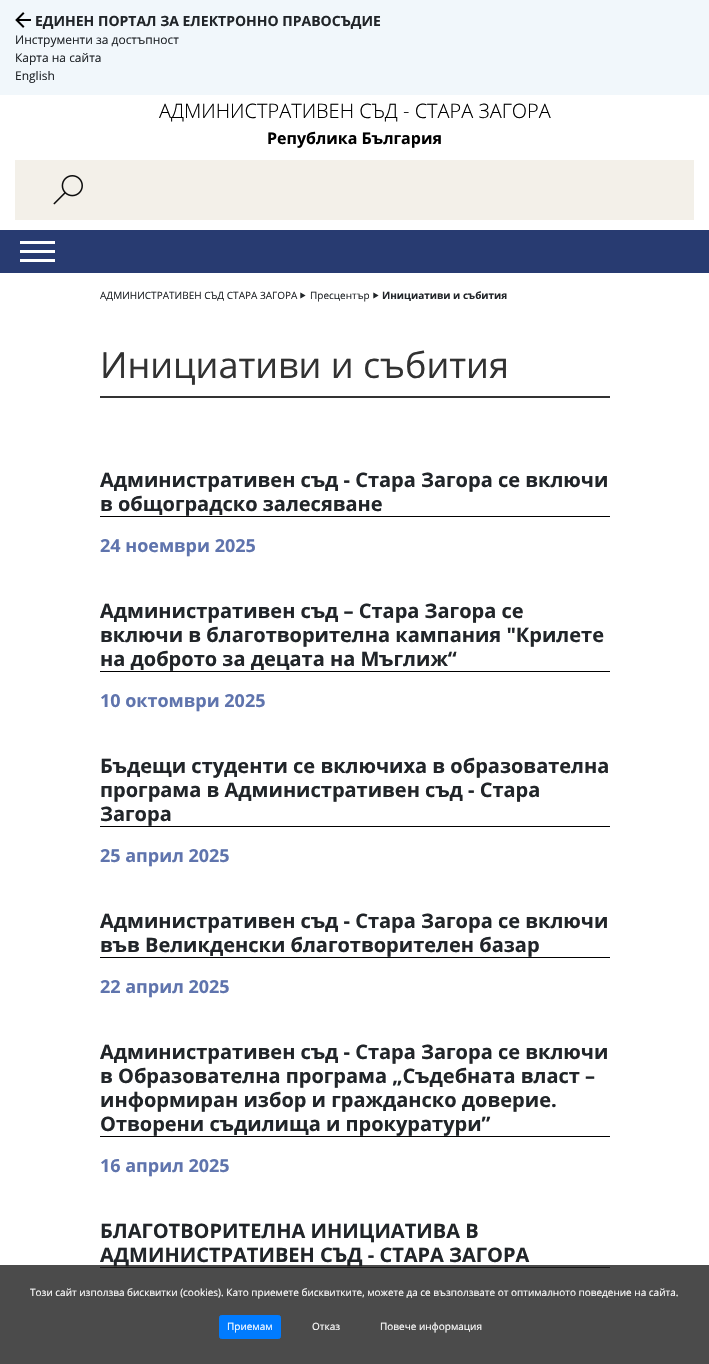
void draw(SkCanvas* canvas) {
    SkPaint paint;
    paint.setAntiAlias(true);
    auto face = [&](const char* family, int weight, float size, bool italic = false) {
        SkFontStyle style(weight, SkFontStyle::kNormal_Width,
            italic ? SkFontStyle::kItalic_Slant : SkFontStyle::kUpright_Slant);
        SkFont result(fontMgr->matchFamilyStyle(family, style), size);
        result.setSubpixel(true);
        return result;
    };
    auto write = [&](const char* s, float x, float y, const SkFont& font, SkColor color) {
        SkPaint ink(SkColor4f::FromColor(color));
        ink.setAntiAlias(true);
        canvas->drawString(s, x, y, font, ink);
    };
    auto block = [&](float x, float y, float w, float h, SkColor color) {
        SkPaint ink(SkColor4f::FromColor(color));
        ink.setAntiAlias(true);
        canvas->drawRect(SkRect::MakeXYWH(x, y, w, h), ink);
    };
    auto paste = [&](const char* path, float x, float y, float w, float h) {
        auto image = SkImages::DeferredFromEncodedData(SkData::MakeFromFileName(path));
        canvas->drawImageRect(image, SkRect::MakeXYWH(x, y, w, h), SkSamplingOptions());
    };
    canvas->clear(SK_ColorWHITE);
    block(0, 0, 709, 95, SkColorSetRGB(241, 247, 251));
    paste("pic1.png", 15, 12, 16, 16);
    auto kFont1 = face("Open Sans", 700, 14);
    write("ЕДИНЕН ПОРТАЛ ЗА ЕЛЕКТРОННО ПРАВОСЪДИЕ", 35, 26, kFont1, SkColorSetRGB(33, 37, 41));
    auto kFont2 = face("Open Sans", 400, 12);
    write("Инструменти за достъпност", 15, 44, kFont2, SkColorSetRGB(33, 37, 41));
    write("Карта на сайта", 15, 62, kFont2, SkColorSetRGB(33, 37, 41));
    write("English", 15, 80, kFont2, SkColorSetRGB(33, 37, 41));
    auto kFont3 = face("Open Sans", 300, 20);
    write("АДМИНИСТРАТИВЕН СЪД - СТАРА ЗАГОРА", 159, 118, kFont3, SK_ColorBLACK);
    auto kFont4 = face("Open Sans", 700, 16);
    write("Република България", 267, 144, kFont4, SK_ColorBLACK);
    block(15, 160, 679, 60, SkColorSetRGB(243, 240, 233));
    paste("pic2.png", 53, 175, 30, 30);
    block(0, 230, 709, 43, SkColorSetRGB(40, 59, 113));
    block(20, 241, 35, 3, SK_ColorWHITE);
    block(20, 250, 35, 3, SK_ColorWHITE);
    block(20, 259, 35, 3, SK_ColorWHITE);
    auto kFont5 = face("Open Sans", 400, 10);
    write("АДМИНИСТРАТИВЕН СЪД СТАРА ЗАГОРА", 100, 299, kFont5, SkColorSetRGB(33, 37, 41));
    auto kFont6 = face("Noto Sans", 400, 20);
    write("‣", 299, 303, kFont6, SkColorSetRGB(33, 37, 41));
    write("Пресцентър", 310, 299, kFont5, SkColorSetRGB(33, 37, 41));
    write("‣", 372, 303, kFont6, SkColorSetRGB(33, 37, 41));
    auto kFont7 = face("Open Sans", 700, 10);
    write("Инициативи и събития", 382, 299, kFont7, SkColorSetRGB(33, 37, 41));
    block(100, 396, 510, 2, SkColorSetRGB(50, 50, 50));
    auto kFont8 = face("Open Sans", 400, 36);
    write("Инициативи и събития", 100, 378, kFont8, SkColorSetRGB(50, 50, 50));
    block(100, 516, 510, 1, SK_ColorBLACK);
    auto kFont9 = face("Open Sans", 700, 20);
    write("Административен съд - Стара Загора се включи", 100, 487, kFont9, SkColorSetRGB(33, 37, 41));
    write("в общоградско залесяване", 100, 511, kFont9, SkColorSetRGB(33, 37, 41));
    auto kFont10 = face("Open Sans", 700, 18);
    write("24 ноември 2025", 100, 552, kFont10, SkColorSetRGB(95, 116, 173));
    block(100, 671, 510, 1, SK_ColorBLACK);
    write("Административен съд – Стара Загора се", 100, 618, kFont9, SkColorSetRGB(33, 37, 41));
    write("включи в благотворителна кампания \"Крилете", 100, 642, kFont9, SkColorSetRGB(33, 37, 41));
    write("на доброто за децата на Мъглиж“", 100, 666, kFont9, SkColorSetRGB(33, 37, 41));
    write("10 октомври 2025", 100, 707, kFont10, SkColorSetRGB(95, 116, 173));
    block(100, 826, 510, 1, SK_ColorBLACK);
    write("Бъдещи студенти се включиха в образователна", 100, 773, kFont9, SkColorSetRGB(33, 37, 41));
    write("програма в Административен съд - Стара", 100, 797, kFont9, SkColorSetRGB(33, 37, 41));
    write("Загора", 100, 821, kFont9, SkColorSetRGB(33, 37, 41));
    write("25 април 2025", 100, 862, kFont10, SkColorSetRGB(95, 116, 173));
    block(100, 957, 510, 1, SK_ColorBLACK);
    write("Административен съд - Стара Загора се включи", 100, 928, kFont9, SkColorSetRGB(33, 37, 41));
    write("във Великденски благотворителен базар", 100, 952, kFont9, SkColorSetRGB(33, 37, 41));
    write("22 април 2025", 100, 993, kFont10, SkColorSetRGB(95, 116, 173));
    block(100, 1136, 510, 1, SK_ColorBLACK);
    write("Административен съд - Стара Загора се включи", 100, 1059, kFont9, SkColorSetRGB(33, 37, 41));
    write("в Образователна програма „Съдебната власт –", 100, 1083, kFont9, SkColorSetRGB(33, 37, 41));
    write("информиран избор и гражданско доверие.", 100, 1107, kFont9, SkColorSetRGB(33, 37, 41));
    write("Отворени съдилища и прокуратури”", 100, 1131, kFont9, SkColorSetRGB(33, 37, 41));
    write("16 април 2025", 100, 1172, kFont10, SkColorSetRGB(95, 116, 173));
    block(100, 1267, 510, 1, SK_ColorBLACK);
    write("БЛАГОТВОРИТЕЛНА ИНИЦИАТИВА В", 100, 1238, kFont9, SkColorSetRGB(33, 37, 41));
    write("АДМИНИСТРАТИВЕН СЪД - СТАРА ЗАГОРА", 100, 1262, kFont9, SkColorSetRGB(33, 37, 41));
    block(0, 1265, 709, 99, SkColorSetARGB(204, 30, 30, 30));
    write("Този сайт използва бисквитки (cookies). Като приемете бисквитките, можете да се възползвате от оптималното поведение на сайта.", 30, 1296, kFont5, SK_ColorWHITE);
    paint.setColor(SkColorSetRGB(0, 123, 255));
    canvas->drawRoundRect(SkRect::MakeXYWH(219.5f, 1315.5f, 61, 23), 2, 2, paint);
    paint.setStyle(SkPaint::kStroke_Style);
    paint.setStrokeWidth(1);
    canvas->drawRoundRect(SkRect::MakeXYWH(219.5f, 1315.5f, 61, 23), 2, 2, paint);
    write("Приемам", 227, 1330, kFont5, SK_ColorWHITE);
    write("Отказ", 312, 1330, kFont5, SK_ColorWHITE);
    write("Повече информация", 380, 1330, kFont5, SK_ColorWHITE);
}
